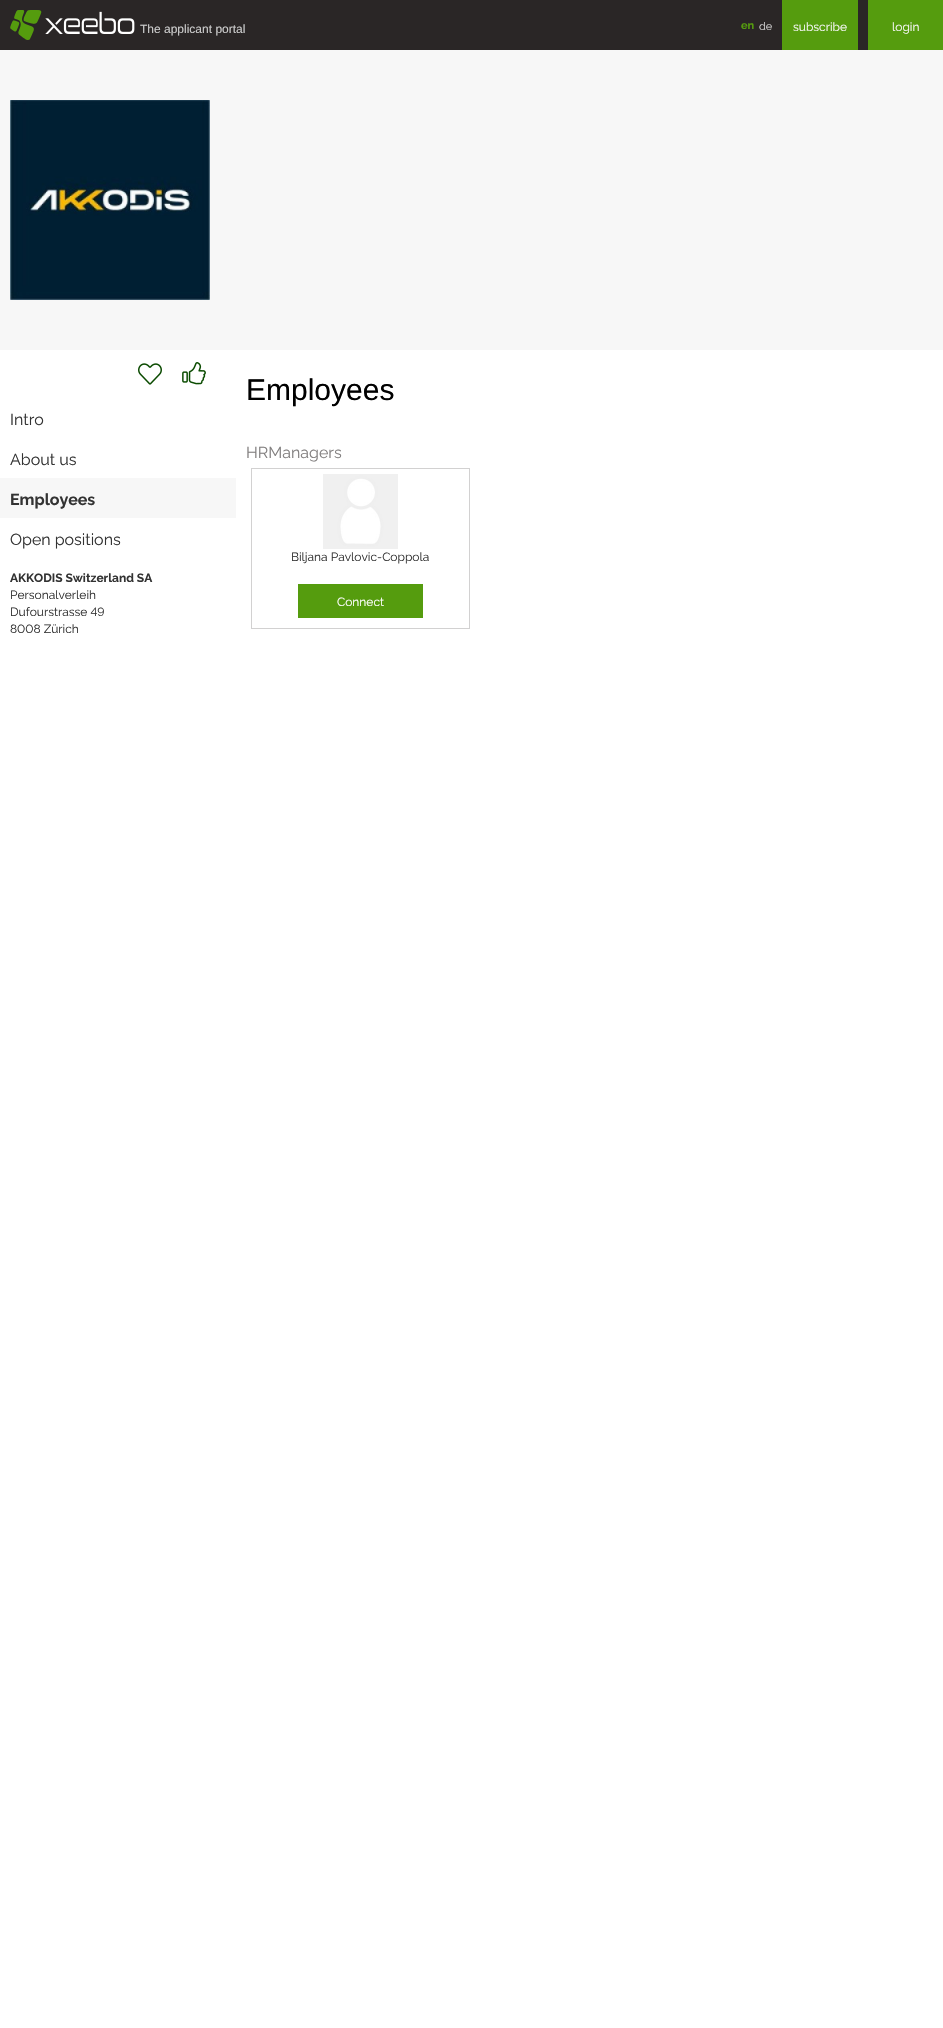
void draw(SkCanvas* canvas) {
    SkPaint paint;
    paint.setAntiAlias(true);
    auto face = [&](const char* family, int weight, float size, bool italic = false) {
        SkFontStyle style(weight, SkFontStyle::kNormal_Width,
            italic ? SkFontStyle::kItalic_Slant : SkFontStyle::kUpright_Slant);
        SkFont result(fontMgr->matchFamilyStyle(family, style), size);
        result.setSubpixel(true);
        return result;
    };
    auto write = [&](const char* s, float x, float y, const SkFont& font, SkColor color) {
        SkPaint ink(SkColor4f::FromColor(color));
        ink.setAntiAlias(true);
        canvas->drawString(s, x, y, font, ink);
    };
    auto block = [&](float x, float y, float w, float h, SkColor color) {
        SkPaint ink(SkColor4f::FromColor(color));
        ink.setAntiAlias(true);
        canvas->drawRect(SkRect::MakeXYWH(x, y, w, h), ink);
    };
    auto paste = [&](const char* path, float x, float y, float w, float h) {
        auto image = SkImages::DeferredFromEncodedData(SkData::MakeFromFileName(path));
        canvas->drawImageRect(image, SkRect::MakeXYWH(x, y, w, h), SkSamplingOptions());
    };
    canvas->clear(SK_ColorWHITE);
    block(0, 0, 868, 50, SkColorSetRGB(42, 38, 38));
    paste("pic1.png", 10, 10, 32, 30);
    paste("pic2.png", 45, 11, 90, 23);
    auto kFont1 = face("Liberation Sans", 400, 12);
    write("The applicant portal", 140, 33, kFont1, SkColorSetRGB(204, 204, 204));
    auto kFont2 = face("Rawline", 700, 11);
    write("en", 741, 29, kFont2, SkColorSetRGB(85, 156, 14));
    auto kFont3 = face("Rawline", 400, 11);
    write("de", 759, 30, kFont3, SkColorSetRGB(210, 209, 209));
    block(782, 0, 76, 50, SkColorSetRGB(85, 156, 14));
    auto kFont4 = face("Rawline", 400, 12);
    write("subscribe", 793, 31, kFont4, SkColorSetRGB(247, 247, 247));
    block(868, 0, 75, 50, SkColorSetRGB(85, 156, 14));
    write("login", 892, 31, kFont4, SkColorSetRGB(247, 247, 247));
    block(0, 50, 943, 300, SkColorSetRGB(247, 247, 247));
    paste("pic3.png", 10, 100, 200, 200);
    paste("pic4.png", 138, 363, 24, 22);
    paste("pic5.png", 182, 362, 24, 23);
    auto kFont5 = face("Rawline", 400, 16);
    write("Intro", 10, 425, kFont5, SkColorSetRGB(51, 51, 51));
    write("About us", 10, 465, kFont5, SkColorSetRGB(51, 51, 51));
    block(0, 478, 236, 40, SkColorSetRGB(247, 247, 247));
    auto kFont6 = face("Rawline", 700, 16);
    write("Employees", 10, 505, kFont6, SkColorSetRGB(51, 51, 51));
    write("Open positions", 10, 545, kFont5, SkColorSetRGB(51, 51, 51));
    auto kFont7 = face("Rawline", 700, 12);
    write("AKKODIS Switzerland SA", 10, 582, kFont7, SkColorSetRGB(51, 51, 51));
    write("Personalverleih", 10, 599, kFont4, SkColorSetRGB(51, 51, 51));
    write("Dufourstrasse 49", 10, 616, kFont4, SkColorSetRGB(51, 51, 51));
    write("8008 Zürich", 10, 633, kFont4, SkColorSetRGB(51, 51, 51));
    auto kFont8 = face("Liberation Sans", 400, 30);
    write("Employees", 246, 400, kFont8, SK_ColorBLACK);
    write("HRManagers", 246, 458, kFont5, SkColorSetRGB(130, 127, 127));
    paint.setStyle(SkPaint::kStroke_Style);
    paint.setStrokeWidth(1);
    paint.setColor(SkColorSetRGB(210, 209, 209));
    canvas->drawRect(SkRect::MakeXYWH(251.5f, 468.5f, 218, 160), paint);
    paste("pic6.png", 323, 474, 75, 75);
    write("Biljana Pavlovic-Coppola", 291, 561, kFont4, SkColorSetRGB(51, 51, 51));
    block(298, 584, 125, 34, SkColorSetRGB(85, 156, 14));
    write("Connect", 337, 606, kFont4, SK_ColorWHITE);
}
